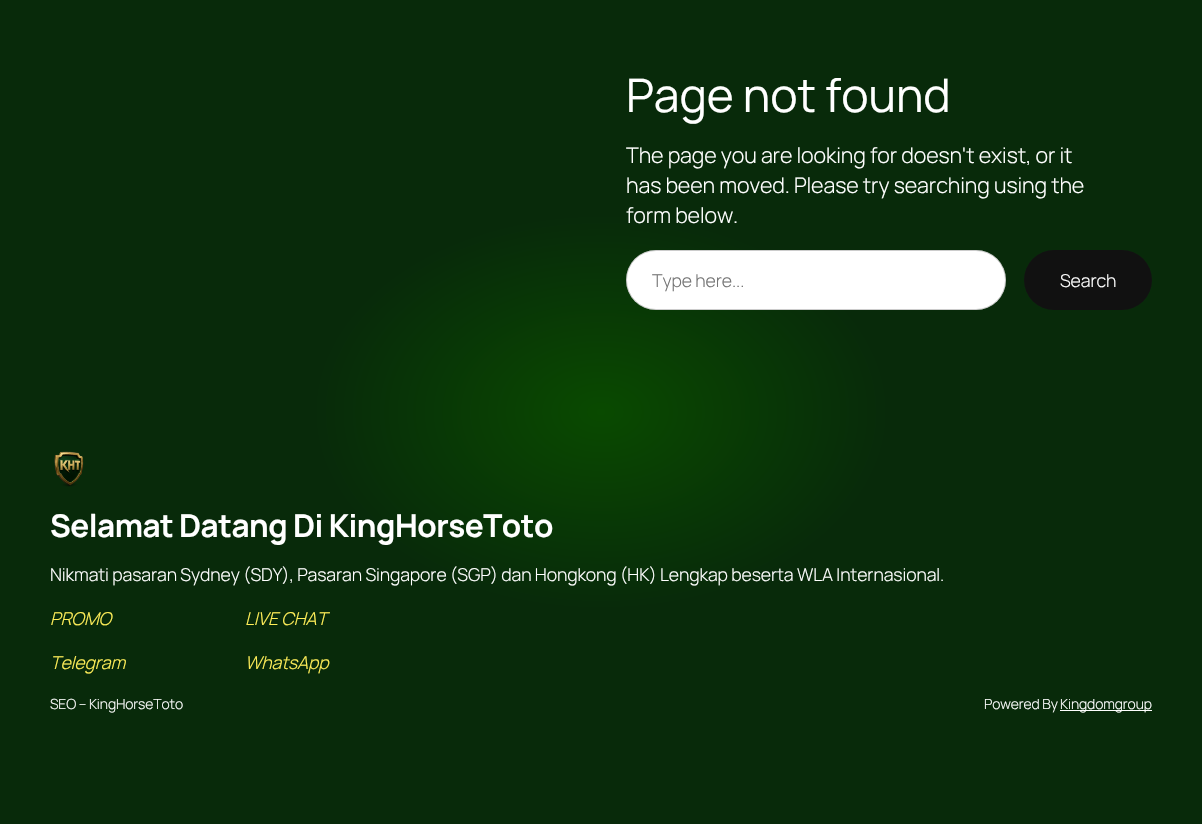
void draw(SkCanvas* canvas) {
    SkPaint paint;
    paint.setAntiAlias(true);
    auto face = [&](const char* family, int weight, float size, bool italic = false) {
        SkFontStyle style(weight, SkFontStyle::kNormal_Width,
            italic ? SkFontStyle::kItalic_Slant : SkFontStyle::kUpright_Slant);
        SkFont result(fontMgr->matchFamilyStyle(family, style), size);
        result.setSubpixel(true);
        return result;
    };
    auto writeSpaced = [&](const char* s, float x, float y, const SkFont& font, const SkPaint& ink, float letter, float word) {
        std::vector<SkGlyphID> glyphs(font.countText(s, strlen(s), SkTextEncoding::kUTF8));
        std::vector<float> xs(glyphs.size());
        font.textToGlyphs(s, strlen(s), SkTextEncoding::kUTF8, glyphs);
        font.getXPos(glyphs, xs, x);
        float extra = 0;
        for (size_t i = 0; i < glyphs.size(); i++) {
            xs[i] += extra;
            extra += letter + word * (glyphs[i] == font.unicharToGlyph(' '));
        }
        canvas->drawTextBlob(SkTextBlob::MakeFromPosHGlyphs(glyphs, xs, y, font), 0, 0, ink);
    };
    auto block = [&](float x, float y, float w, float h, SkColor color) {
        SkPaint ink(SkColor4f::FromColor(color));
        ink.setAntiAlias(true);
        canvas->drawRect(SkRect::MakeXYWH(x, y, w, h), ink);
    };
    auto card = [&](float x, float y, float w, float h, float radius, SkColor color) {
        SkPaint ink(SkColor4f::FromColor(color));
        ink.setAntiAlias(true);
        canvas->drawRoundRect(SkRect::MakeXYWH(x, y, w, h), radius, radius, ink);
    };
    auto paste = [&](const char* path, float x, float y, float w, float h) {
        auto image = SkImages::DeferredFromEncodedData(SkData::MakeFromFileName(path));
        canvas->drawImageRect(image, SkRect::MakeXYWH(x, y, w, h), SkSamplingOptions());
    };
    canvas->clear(SK_ColorWHITE);
    {
        const SkColor colors[] = {SkColorSetRGB(9, 74, 0), SkColorSetRGB(8, 42, 10)};
        const float stops[] = {0, 0.34f};
        SkMatrix m = SkMatrix::Translate(601, 412).preScale(850, 583);
        paint.setShader(SkGradientShader::MakeRadial({0, 0}, 1, colors, stops, 2, SkTileMode::kClamp, 0, &m));
        paint.setAlpha(255);
    }
    canvas->drawRect(SkRect::MakeXYWH(0, 0, 1202, 824), paint);
    auto kFont1 = face("Manrope", 400, 46.25f);
    paint.setShader(nullptr);
    paint.setColor(SK_ColorWHITE);
    writeSpaced("Page not found", 626, 112, kFont1, paint, -0.1f, 0);
    auto kFont2 = face("Manrope", 300, 21.5f);
    writeSpaced("The page you are looking for doesn't exist, or it", 626, 163, kFont2, paint, -0.1f, 0);
    writeSpaced("has been moved. Please try searching using the", 626, 193, kFont2, paint, -0.1f, 0);
    writeSpaced("form below.", 626, 223, kFont2, paint, -0.1f, 0);
    card(626, 250, 380, 60, 30, SK_ColorWHITE);
    paint.setStyle(SkPaint::kStroke_Style);
    paint.setStrokeWidth(1);
    paint.setColor(SkColorSetARGB(51, 0, 0, 0));
    canvas->drawRoundRect(SkRect::MakeXYWH(626.5f, 250.5f, 379, 59), 29.5f, 29.5f, paint);
    auto kFont3 = face("Manrope", 300, 17.73f);
    paint.setStyle(SkPaint::kFill_Style);
    paint.setColor(SkColorSetRGB(117, 117, 117));
    writeSpaced("Type here...", 652, 287, kFont3, paint, -0.1f, 0);
    card(1024, 250, 128, 60, 30, SkColorSetRGB(17, 17, 17));
    paint.setColor(SK_ColorWHITE);
    writeSpaced("Search", 1060, 287, kFont3, paint, -0.1f, 0);
    paste("pic1.png", 54, 451, 30, 36);
    auto kFont4 = face("Manrope", 700, 31.5f);
    writeSpaced("Selamat Datang Di KingHorseToto", 50, 537, kFont4, paint, -0.5f, 0);
    writeSpaced("Nikmati pasaran Sydney (SDY), Pasaran Singapore (SGP) dan Hongkong (HK) Lengkap beserta WLA Internasional.", 50, 581, kFont3, paint, -0.1f, 0);
    auto kFont5 = face("Manrope", 300, 17.73f, true);
    paint.setColor(SkColorSetRGB(255, 238, 88));
    writeSpaced("PROMO", 50, 625, kFont5, paint, -0.1f, 0);
    writeSpaced("Telegram", 50, 669, kFont5, paint, -0.1f, 0);
    writeSpaced("LIVE CHAT", 245, 625, kFont5, paint, -0.1f, 0);
    writeSpaced("WhatsApp", 245, 669, kFont5, paint, -0.1f, 0);
    auto kFont6 = face("Manrope", 300, 14);
    paint.setColor(SK_ColorWHITE);
    writeSpaced("SEO – KingHorseToto", 50, 709, kFont6, paint, -0.1f, 0);
    writeSpaced("Powered By", 984, 709, kFont6, paint, -0.1f, 0);
    block(1060, 710, 92, 1, SK_ColorWHITE);
    writeSpaced("Kingdomgroup", 1060, 709, kFont6, paint, -0.1f, 0);
}
